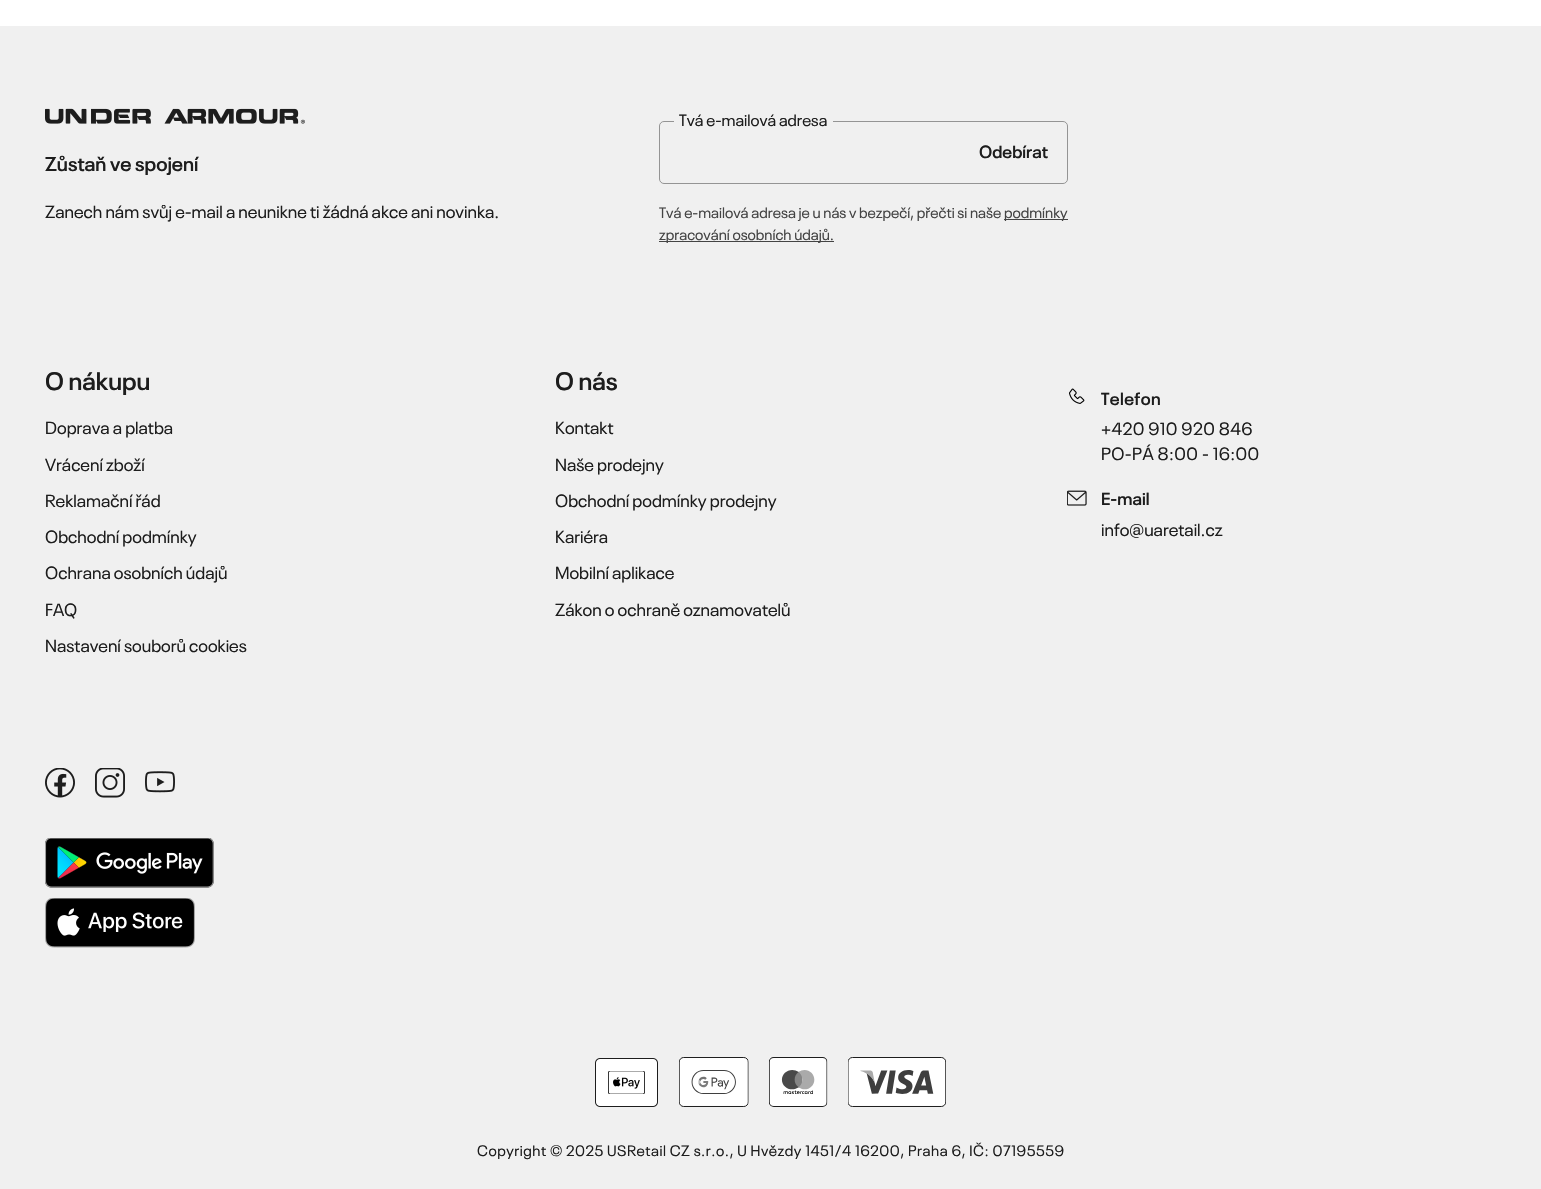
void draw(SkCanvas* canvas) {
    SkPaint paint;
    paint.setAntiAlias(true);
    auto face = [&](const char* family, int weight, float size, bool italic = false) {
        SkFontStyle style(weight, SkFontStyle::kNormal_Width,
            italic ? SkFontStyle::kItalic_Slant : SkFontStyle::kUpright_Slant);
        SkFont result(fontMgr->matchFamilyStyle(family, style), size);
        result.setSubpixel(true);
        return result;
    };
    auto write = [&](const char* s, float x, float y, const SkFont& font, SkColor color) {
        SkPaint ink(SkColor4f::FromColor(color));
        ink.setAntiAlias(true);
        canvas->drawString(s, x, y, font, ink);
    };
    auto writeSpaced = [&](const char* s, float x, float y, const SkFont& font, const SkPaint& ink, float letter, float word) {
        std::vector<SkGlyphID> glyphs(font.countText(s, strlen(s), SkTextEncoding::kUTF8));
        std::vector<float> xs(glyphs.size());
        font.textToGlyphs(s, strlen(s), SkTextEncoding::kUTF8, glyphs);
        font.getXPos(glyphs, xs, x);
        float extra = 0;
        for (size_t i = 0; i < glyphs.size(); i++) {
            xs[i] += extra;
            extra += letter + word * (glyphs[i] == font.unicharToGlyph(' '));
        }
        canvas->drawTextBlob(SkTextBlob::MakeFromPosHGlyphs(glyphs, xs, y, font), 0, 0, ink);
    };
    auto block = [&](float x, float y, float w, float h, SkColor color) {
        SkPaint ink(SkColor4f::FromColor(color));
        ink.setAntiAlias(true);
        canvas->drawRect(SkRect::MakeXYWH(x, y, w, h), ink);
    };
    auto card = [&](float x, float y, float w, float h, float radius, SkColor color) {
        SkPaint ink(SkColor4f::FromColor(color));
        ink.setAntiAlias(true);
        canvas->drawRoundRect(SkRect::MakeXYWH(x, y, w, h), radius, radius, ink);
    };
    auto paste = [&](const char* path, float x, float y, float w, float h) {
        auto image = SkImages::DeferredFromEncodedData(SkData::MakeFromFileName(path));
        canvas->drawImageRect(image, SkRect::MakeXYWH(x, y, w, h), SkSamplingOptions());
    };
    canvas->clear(SK_ColorWHITE);
    block(0, 26, 1541, 1163, SkColorSetRGB(240, 240, 240));
    paste("pic1.png", 45, 108, 260, 16);
    auto kFont1 = face("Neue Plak", 600, 20);
    write("Zůstaň ve spojení", 45, 171, kFont1, SkColorSetRGB(29, 29, 29));
    auto kFont2 = face("Neue Plak", 400, 17.5f);
    write("Zanech nám svůj e-mail a neunikne ti žádná akce ani novinka.", 45, 218, kFont2, SkColorSetRGB(29, 29, 29));
    paint.setStyle(SkPaint::kStroke_Style);
    paint.setStrokeWidth(1);
    paint.setColor(SkColorSetRGB(148, 148, 148));
    canvas->drawRoundRect(SkRect::MakeXYWH(659.5f, 121.5f, 408, 62), 4.5f, 4.5f, paint);
    card(674, 106, 159, 25, 5, SkColorSetRGB(240, 240, 240));
    auto kFont3 = face("Neue Plak", 400, 16.25f);
    write("Tvá e-mailová adresa", 679, 126, kFont3, SkColorSetRGB(29, 29, 29));
    auto kFont4 = face("Neue Plak", 600, 17.5f);
    write("Odebírat", 979, 158, kFont4, SkColorSetRGB(29, 29, 29));
    auto kFont5 = face("Neue Plak", 400, 15);
    write("Tvá e-mailová adresa je u nás v bezpečí, přečti si naše", 659, 218, kFont5, SkColorSetRGB(68, 68, 68));
    block(1004, 219, 64, 1, SkColorSetRGB(68, 68, 68));
    write("podmínky", 1004, 218, kFont5, SkColorSetRGB(68, 68, 68));
    block(659, 241, 175, 1, SkColorSetRGB(68, 68, 68));
    write("zpracování osobních údajů.", 659, 240, kFont5, SkColorSetRGB(68, 68, 68));
    auto kFont6 = face("Neue Plak", 600, 25);
    write("O nákupu", 45, 390, kFont6, SkColorSetRGB(29, 29, 29));
    write("Doprava a platba", 45, 434, kFont2, SkColorSetRGB(29, 29, 29));
    write("Vrácení zboží", 45, 471, kFont2, SkColorSetRGB(29, 29, 29));
    write("Reklamační řád", 45, 507, kFont2, SkColorSetRGB(29, 29, 29));
    write("Obchodní podmínky", 45, 543, kFont2, SkColorSetRGB(29, 29, 29));
    write("Ochrana osobních údajů", 45, 579, kFont2, SkColorSetRGB(29, 29, 29));
    write("FAQ", 45, 616, kFont2, SkColorSetRGB(29, 29, 29));
    write("Nastavení souborů cookies", 45, 652, kFont2, SkColorSetRGB(29, 29, 29));
    write("O nás", 555, 390, kFont6, SkColorSetRGB(29, 29, 29));
    write("Kontakt", 555, 434, kFont2, SkColorSetRGB(29, 29, 29));
    write("Naše prodejny", 555, 471, kFont2, SkColorSetRGB(29, 29, 29));
    write("Obchodní podmínky prodejny", 555, 507, kFont2, SkColorSetRGB(29, 29, 29));
    write("Kariéra", 555, 543, kFont2, SkColorSetRGB(29, 29, 29));
    write("Mobilní aplikace", 555, 579, kFont2, SkColorSetRGB(29, 29, 29));
    write("Zákon o ochraně oznamovatelů", 555, 616, kFont2, SkColorSetRGB(29, 29, 29));
    paste("pic2.png", 1069, 388, 16, 16);
    paint.setStyle(SkPaint::kFill_Style);
    paint.setColor(SkColorSetRGB(29, 29, 29));
    writeSpaced("Telefon", 1101, 405, kFont4, paint, 0.4f, 0);
    writeSpaced("+420 910 920 846", 1101, 435, kFont2, paint, 0.4f, 0);
    writeSpaced("PO-PÁ 8:00 - 16:00", 1101, 460, kFont2, paint, 0.4f, 0);
    paste("pic3.png", 1067, 490, 20, 16);
    write("E-mail", 1101, 505, kFont4, SkColorSetRGB(29, 29, 29));
    write("info@uaretail.cz", 1101, 536, kFont2, SkColorSetRGB(29, 29, 29));
    paste("pic4.png", 45, 768, 30, 30);
    paste("pic5.png", 95, 768, 30, 30);
    paste("pic6.png", 145, 771, 30, 22);
    paste("pic7.png", 45, 838, 169, 50);
    paste("pic8.png", 45, 898, 150, 50);
    paste("pic9.png", 595, 1058, 63, 49);
    paste("pic10.png", 679, 1057, 70, 50);
    paste("pic11.png", 769, 1057, 59, 50);
    paste("pic12.png", 848, 1057, 98, 50);
    writeSpaced("Copyright © 2025 USRetail CZ s.r.o., U Hvězdy 1451/4 16200, Praha 6, IČ: 07195559", 477, 1156, kFont5, paint, 0.53f, 0);
}
